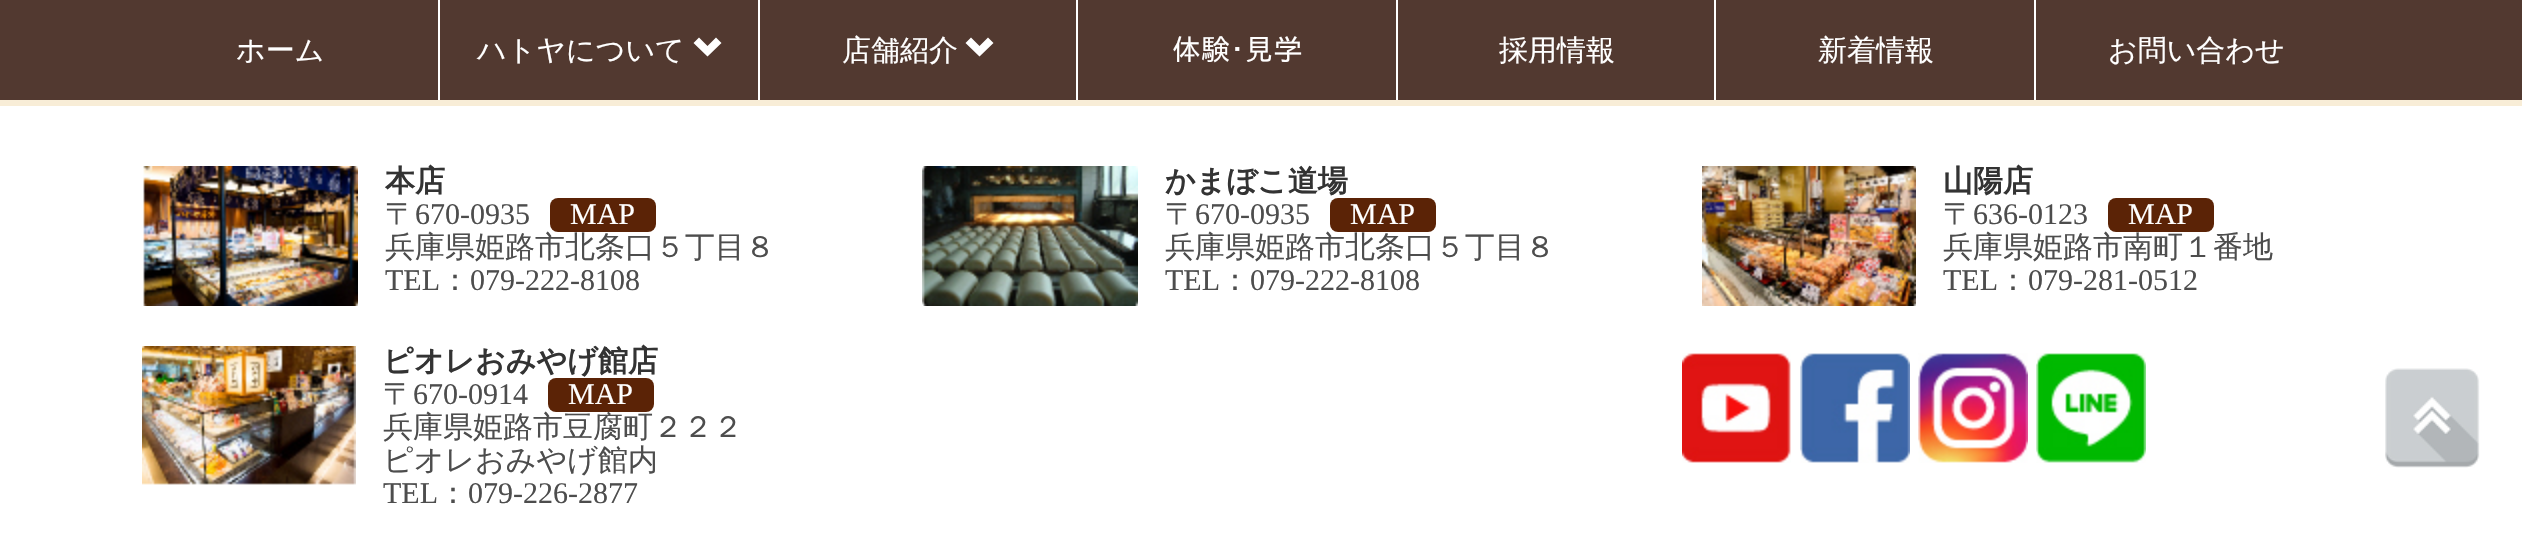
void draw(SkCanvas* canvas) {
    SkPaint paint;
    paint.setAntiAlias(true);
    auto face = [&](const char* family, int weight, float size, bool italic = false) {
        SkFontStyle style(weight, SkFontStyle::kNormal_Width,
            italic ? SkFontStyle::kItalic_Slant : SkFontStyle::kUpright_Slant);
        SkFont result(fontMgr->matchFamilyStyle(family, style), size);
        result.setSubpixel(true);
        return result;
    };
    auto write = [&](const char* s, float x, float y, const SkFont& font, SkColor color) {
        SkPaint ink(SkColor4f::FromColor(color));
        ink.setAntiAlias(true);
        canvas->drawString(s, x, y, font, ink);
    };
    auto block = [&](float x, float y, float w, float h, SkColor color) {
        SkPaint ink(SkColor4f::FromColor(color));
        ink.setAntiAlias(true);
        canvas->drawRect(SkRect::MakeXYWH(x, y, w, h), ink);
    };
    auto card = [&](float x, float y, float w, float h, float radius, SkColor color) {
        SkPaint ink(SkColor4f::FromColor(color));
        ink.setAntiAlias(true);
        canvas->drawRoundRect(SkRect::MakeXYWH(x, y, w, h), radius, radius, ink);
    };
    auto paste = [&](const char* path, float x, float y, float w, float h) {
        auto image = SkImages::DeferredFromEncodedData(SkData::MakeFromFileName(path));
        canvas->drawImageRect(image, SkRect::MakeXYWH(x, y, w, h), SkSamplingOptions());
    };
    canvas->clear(SK_ColorWHITE);
    block(0, 0, 2522, 100, SkColorSetRGB(82, 57, 48));
    block(438, 0, 2, 100, SK_ColorWHITE);
    auto kFont1 = face("WenQuanYi Zen Hei", 500, 29);
    write("ホーム", 236, 60, kFont1, SK_ColorWHITE);
    block(758, 0, 2, 100, SK_ColorWHITE);
    write("ハトヤについて", 477, 60, kFont1, SK_ColorWHITE);
    paint.setColor(SK_ColorWHITE);
    canvas->drawPath(SkPathBuilder().moveTo(693.5f, 43).lineTo(707.5f, 56.5f).lineTo(721.5f, 43).lineTo(716, 37.5f).lineTo(707.5f, 46).lineTo(699, 37.5f).close().detach(), paint);
    block(1076, 0, 2, 100, SK_ColorWHITE);
    write("店舗紹介", 842, 60, kFont1, SK_ColorWHITE);
    canvas->drawPath(SkPathBuilder().moveTo(965.5f, 43).lineTo(979.5f, 56.5f).lineTo(993.5f, 43).lineTo(988, 37.5f).lineTo(979.5f, 46).lineTo(971, 37.5f).close().detach(), paint);
    block(1396, 0, 2, 100, SK_ColorWHITE);
    auto kFont2 = face("IPAGothic", 400, 29);
    write("体験･見学", 1172, 60, kFont2, SK_ColorWHITE);
    block(1714, 0, 2, 100, SK_ColorWHITE);
    write("採用情報", 1499, 60, kFont1, SK_ColorWHITE);
    block(2034, 0, 2, 100, SK_ColorWHITE);
    write("新着情報", 1818, 60, kFont1, SK_ColorWHITE);
    write("お問い合わせ", 2108, 60, kFont1, SK_ColorWHITE);
    block(0, 100, 2522, 6, SkColorSetRGB(248, 237, 215));
    paste("pic1.png", 143, 166, 215, 140);
    auto kFont3 = face("WenQuanYi Zen Hei", 700, 30);
    write("本店", 385, 191, kFont3, SkColorSetRGB(51, 51, 51));
    auto kFont4 = face("WenQuanYi Zen Hei", 500, 30);
    write("〒", 385, 224, kFont4, SkColorSetRGB(77, 77, 77));
    auto kFont5 = face("Liberation Serif", 400, 30);
    write("670-0935", 415, 224, kFont5, SkColorSetRGB(77, 77, 77));
    card(550, 198, 106, 34, 8, SkColorSetRGB(91, 35, 6));
    write("MAP", 570, 224, kFont5, SK_ColorWHITE);
    write("兵庫県姫路市北条口５丁目８", 385, 257, kFont4, SkColorSetRGB(77, 77, 77));
    write("TEL", 385, 290, kFont5, SkColorSetRGB(77, 77, 77));
    write("：", 440, 290, kFont4, SkColorSetRGB(77, 77, 77));
    write("079-222-8108", 470, 290, kFont5, SkColorSetRGB(77, 77, 77));
    paste("pic2.png", 922, 166, 216, 140);
    write("かまぼこ道場", 1165, 191, kFont3, SkColorSetRGB(51, 51, 51));
    write("〒", 1165, 224, kFont4, SkColorSetRGB(77, 77, 77));
    write("670-0935", 1195, 224, kFont5, SkColorSetRGB(77, 77, 77));
    card(1330, 198, 106, 34, 8, SkColorSetRGB(91, 35, 6));
    write("MAP", 1350, 224, kFont5, SK_ColorWHITE);
    write("兵庫県姫路市北条口５丁目８", 1165, 257, kFont4, SkColorSetRGB(77, 77, 77));
    write("TEL", 1165, 290, kFont5, SkColorSetRGB(77, 77, 77));
    write("：", 1220, 290, kFont4, SkColorSetRGB(77, 77, 77));
    write("079-222-8108", 1250, 290, kFont5, SkColorSetRGB(77, 77, 77));
    paste("pic3.png", 1702, 166, 214, 140);
    write("山陽店", 1943, 191, kFont3, SkColorSetRGB(51, 51, 51));
    write("〒", 1943, 224, kFont4, SkColorSetRGB(77, 77, 77));
    write("636-0123", 1973, 224, kFont5, SkColorSetRGB(77, 77, 77));
    card(2108, 198, 106, 34, 8, SkColorSetRGB(91, 35, 6));
    write("MAP", 2128, 224, kFont5, SK_ColorWHITE);
    write("兵庫県姫路市南町１番地", 1943, 257, kFont4, SkColorSetRGB(77, 77, 77));
    write("TEL", 1943, 290, kFont5, SkColorSetRGB(77, 77, 77));
    write("：", 1998, 290, kFont4, SkColorSetRGB(77, 77, 77));
    write("079-281-0512", 2028, 290, kFont5, SkColorSetRGB(77, 77, 77));
    paste("pic4.png", 142, 346, 214, 139);
    write("ピオレおみやげ館店", 383, 371, kFont3, SkColorSetRGB(51, 51, 51));
    write("〒", 383, 404, kFont4, SkColorSetRGB(77, 77, 77));
    write("670-0914", 413, 404, kFont5, SkColorSetRGB(77, 77, 77));
    card(548, 378, 106, 34, 8, SkColorSetRGB(91, 35, 6));
    write("MAP", 568, 404, kFont5, SK_ColorWHITE);
    write("兵庫県姫路市豆腐町２２２", 383, 437, kFont4, SkColorSetRGB(77, 77, 77));
    write("ピオレおみやげ館内", 383, 470, kFont4, SkColorSetRGB(77, 77, 77));
    write("TEL", 383, 503, kFont5, SkColorSetRGB(77, 77, 77));
    write("：", 438, 503, kFont4, SkColorSetRGB(77, 77, 77));
    write("079-226-2877", 468, 503, kFont5, SkColorSetRGB(77, 77, 77));
    paste("pic5.png", 1682, 353, 109, 110);
    paste("pic6.png", 1800, 353, 110, 110);
    paste("pic7.png", 1918, 353, 110, 110);
    paste("pic8.png", 2036, 353, 110, 110);
    paste("pic9.png", 2385, 368, 95, 100);
}
